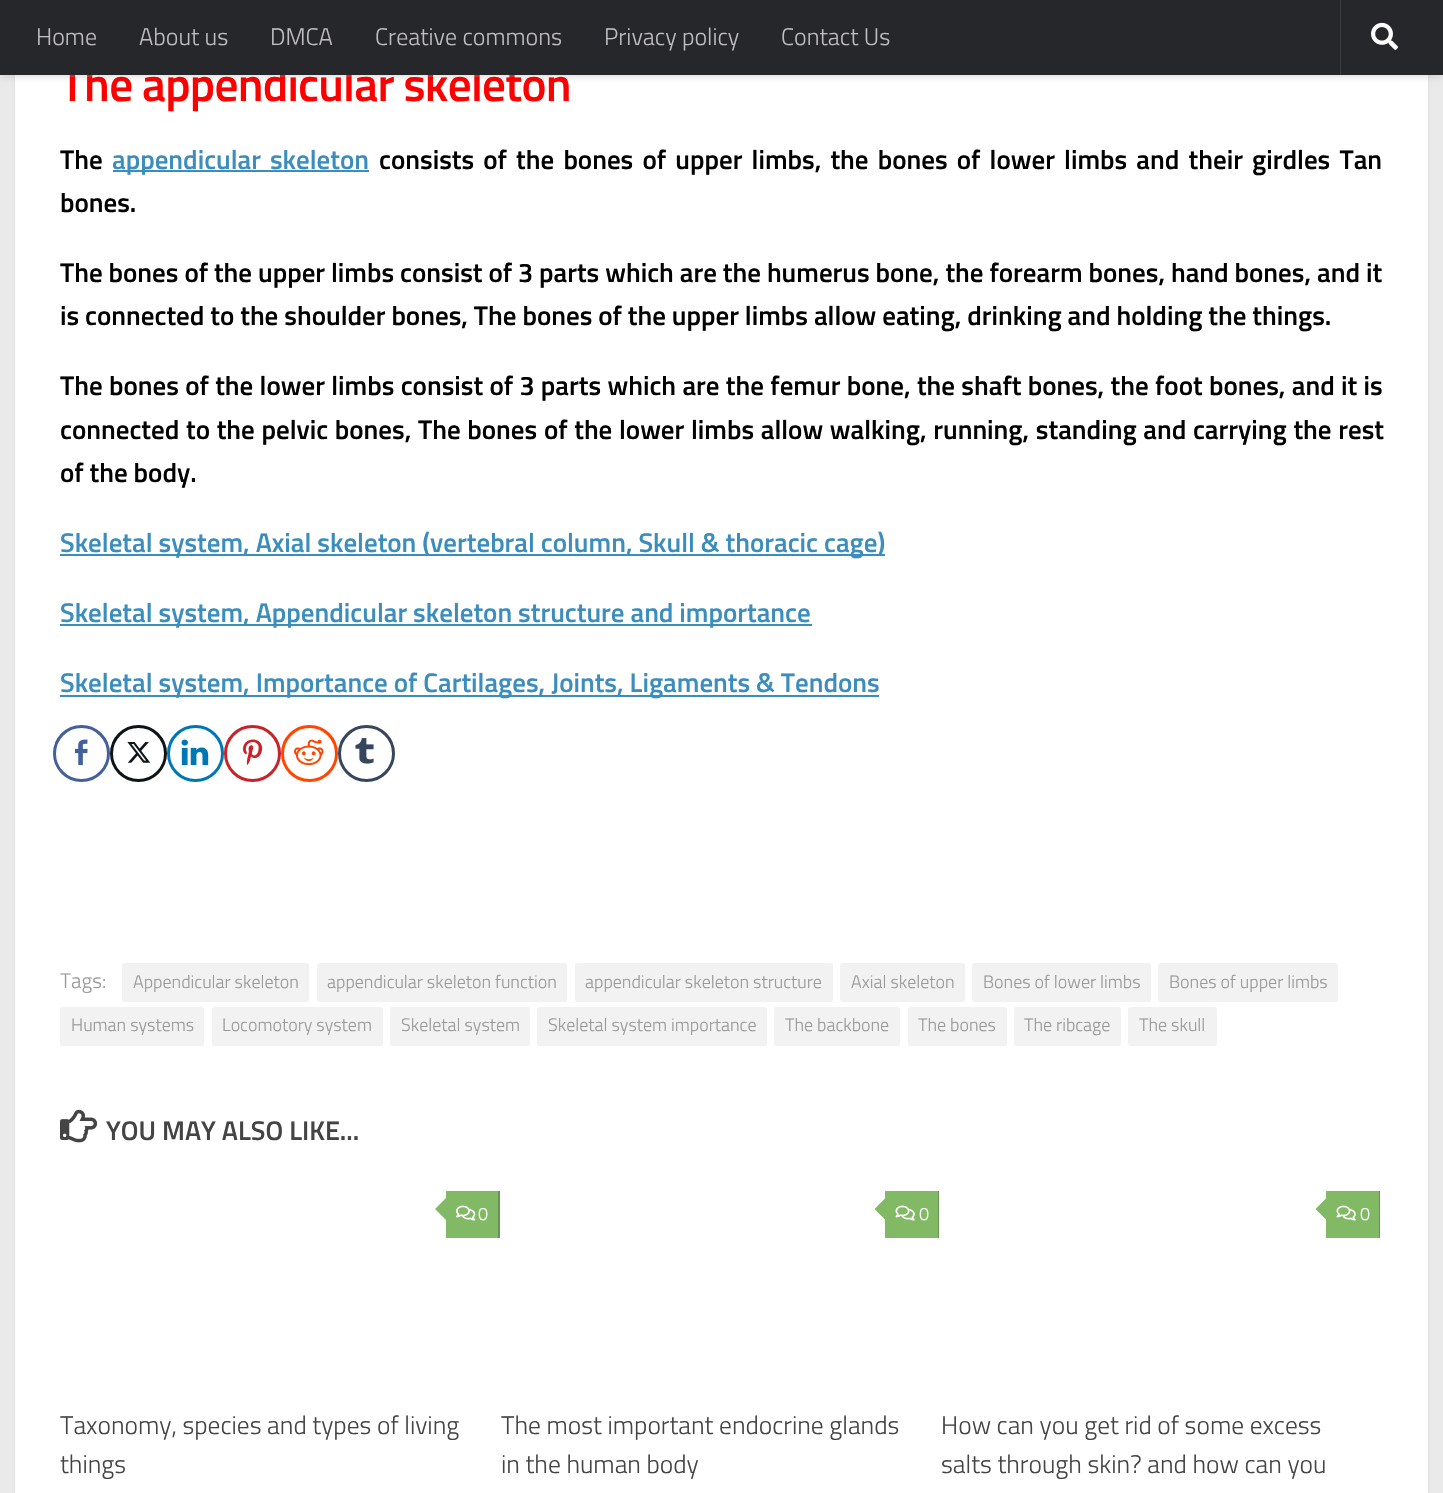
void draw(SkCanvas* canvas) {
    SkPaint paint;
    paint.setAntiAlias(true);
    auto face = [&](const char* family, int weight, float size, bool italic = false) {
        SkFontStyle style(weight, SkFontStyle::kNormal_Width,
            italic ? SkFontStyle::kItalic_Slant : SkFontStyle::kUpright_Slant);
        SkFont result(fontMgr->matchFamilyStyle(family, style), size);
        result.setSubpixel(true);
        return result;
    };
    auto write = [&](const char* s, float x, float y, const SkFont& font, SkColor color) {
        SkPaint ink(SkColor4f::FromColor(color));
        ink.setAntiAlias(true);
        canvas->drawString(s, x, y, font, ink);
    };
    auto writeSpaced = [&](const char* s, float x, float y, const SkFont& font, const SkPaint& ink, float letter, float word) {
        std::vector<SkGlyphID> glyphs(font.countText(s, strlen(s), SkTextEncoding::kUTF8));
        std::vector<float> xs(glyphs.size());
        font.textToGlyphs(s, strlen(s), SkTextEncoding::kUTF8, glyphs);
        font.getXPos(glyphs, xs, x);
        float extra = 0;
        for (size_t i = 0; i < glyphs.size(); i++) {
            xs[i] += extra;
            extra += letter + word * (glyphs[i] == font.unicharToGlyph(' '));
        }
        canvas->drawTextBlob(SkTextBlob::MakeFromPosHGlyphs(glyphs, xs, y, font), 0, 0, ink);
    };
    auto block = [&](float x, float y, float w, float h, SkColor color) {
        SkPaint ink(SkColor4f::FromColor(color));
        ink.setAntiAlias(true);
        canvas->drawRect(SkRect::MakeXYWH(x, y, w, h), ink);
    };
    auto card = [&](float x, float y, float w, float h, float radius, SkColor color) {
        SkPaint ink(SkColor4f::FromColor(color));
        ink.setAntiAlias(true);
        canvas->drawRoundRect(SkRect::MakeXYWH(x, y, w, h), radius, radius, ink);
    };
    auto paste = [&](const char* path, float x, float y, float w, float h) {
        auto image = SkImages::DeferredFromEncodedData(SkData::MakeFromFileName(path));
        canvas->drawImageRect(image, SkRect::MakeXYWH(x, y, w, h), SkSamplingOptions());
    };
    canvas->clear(SkColorSetRGB(234, 234, 234));
    paint.setColor(SkColorSetARGB(26, 0, 0, 0));
    paint.setMaskFilter(SkMaskFilter::MakeBlur(kNormal_SkBlurStyle, 1));
    canvas->drawRect(SkRect::MakeXYWH(15, -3, 1413, 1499), paint);
    paint.setMaskFilter(nullptr);
    block(15, 75, 1413, 1418, SK_ColorWHITE);
    auto kFont1 = face("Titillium", 600, 47.25f);
    paint.setColor(SkColorSetRGB(255, 0, 0));
    writeSpaced("The appendicular skeleton", 60, 101, kFont1, paint, -0.75f, 0);
    block(0, 75, 1443, 2, SkColorSetARGB(38, 255, 255, 255));
    paint.setColor(SkColorSetARGB(51, 0, 0, 0));
    paint.setMaskFilter(SkMaskFilter::MakeBlur(kNormal_SkBlurStyle, 4));
    canvas->drawRect(SkRect::MakeXYWH(0, 0, 1443, 75), paint);
    paint.setMaskFilter(nullptr);
    block(0, 0, 1443, 75, SkColorSetRGB(38, 39, 43));
    auto kFont2 = face("Titillium", 300, 24);
    write("Home", 36, 45, kFont2, SkColorSetRGB(190, 190, 191));
    write("About us", 139, 45, kFont2, SkColorSetRGB(190, 190, 191));
    write("DMCA", 270, 45, kFont2, SkColorSetRGB(190, 190, 191));
    write("Creative commons", 375, 45, kFont2, SkColorSetRGB(190, 190, 191));
    write("Privacy policy", 604, 45, kFont2, SkColorSetRGB(190, 190, 191));
    write("Contact Us", 781, 45, kFont2, SkColorSetRGB(190, 190, 191));
    block(1340, 0, 1, 75, SkColorSetRGB(60, 61, 64));
    paste("pic1.png", 1371, 22, 27, 28);
    auto kFont3 = face("Titillium", 600, 27);
    write("The", 60, 169, kFont3, SK_ColorBLACK);
    block(113, 170, 256, 2, SkColorSetRGB(59, 141, 189));
    paint.setColor(SkColorSetRGB(59, 141, 189));
    writeSpaced("appendicular skeleton", 112, 169, kFont3, paint, 0, 3);
    paint.setColor(SK_ColorBLACK);
    writeSpaced("consists of the bones of upper limbs, the bones of lower limbs and their girdles Tan", 379, 169, kFont3, paint, 0, 3.25f);
    write("bones.", 60, 212, kFont3, SK_ColorBLACK);
    write("The bones of the upper limbs consist of 3 parts which are the humerus bone, the forearm bones, hand bones, and it", 60, 282, kFont3, SK_ColorBLACK);
    write("is connected to the shoulder bones, The bones of the upper limbs allow eating, drinking and holding the things.", 60, 325, kFont3, SK_ColorBLACK);
    writeSpaced("The bones of the lower limbs consist of 3 parts which are the femur bone, the shaft bones, the foot bones, and it is", 60, 395, kFont3, paint, 0, 0.4f);
    writeSpaced("connected to the pelvic bones, The bones of the lower limbs allow walking, running, standing and carrying the rest", 60, 439, kFont3, paint, 0, 0.75f);
    write("of the body.", 60, 482, kFont3, SK_ColorBLACK);
    block(60, 554, 825, 2, SkColorSetRGB(59, 141, 189));
    write("Skeletal system, Axial skeleton (vertebral column, Skull & thoracic cage)", 60, 552, kFont3, SkColorSetRGB(59, 141, 189));
    block(60, 624, 752, 2, SkColorSetRGB(59, 141, 189));
    write("Skeletal system, Appendicular skeleton structure and importance", 60, 622, kFont3, SkColorSetRGB(59, 141, 189));
    block(60, 695, 819, 2, SkColorSetRGB(59, 141, 189));
    write("Skeletal system, Importance of Cartilages, Joints, Ligaments & Tendons", 60, 692, kFont3, SkColorSetRGB(59, 141, 189));
    paint.setStyle(SkPaint::kStroke_Style);
    paint.setStrokeWidth(3);
    paint.setColor(SkColorSetRGB(67, 96, 156));
    canvas->drawCircle(81.5f, 753.5f, 27, paint);
    paste("pic2.png", 75, 739, 13, 27);
    paint.setColor(SkColorSetRGB(15, 20, 25));
    canvas->drawCircle(138.5f, 753.5f, 27, paint);
    paste("pic3.png", 127, 742, 24, 21);
    paint.setColor(SkColorSetRGB(0, 119, 181));
    canvas->drawCircle(195.5f, 753.5f, 27, paint);
    paste("pic4.png", 181, 739, 28, 27);
    paint.setColor(SkColorSetRGB(201, 34, 40));
    canvas->drawCircle(252.5f, 753.5f, 27, paint);
    paste("pic5.png", 243, 739, 20, 26);
    paint.setColor(SkColorSetRGB(255, 69, 0));
    canvas->drawCircle(309.5f, 753.5f, 27, paint);
    paste("pic6.png", 294, 739, 30, 27);
    paint.setColor(SkColorSetRGB(54, 70, 93));
    canvas->drawCircle(366.5f, 753.5f, 27, paint);
    paste("pic7.png", 355, 738, 19, 26);
    auto kFont4 = face("Titillium", 300, 21);
    write("Tags:", 60, 988, kFont4, SkColorSetRGB(153, 153, 153));
    card(122, 963, 187, 39, 3, SkColorSetRGB(242, 242, 242));
    auto kFont5 = face("Titillium", 300, 18);
    write("Appendicular skeleton", 133, 988, kFont5, SkColorSetRGB(153, 153, 153));
    card(317, 963, 250, 39, 3, SkColorSetRGB(242, 242, 242));
    write("appendicular skeleton function", 327, 988, kFont5, SkColorSetRGB(153, 153, 153));
    card(575, 963, 258, 39, 3, SkColorSetRGB(242, 242, 242));
    write("appendicular skeleton structure", 585, 988, kFont5, SkColorSetRGB(153, 153, 153));
    card(840, 963, 125, 39, 3, SkColorSetRGB(242, 242, 242));
    write("Axial skeleton", 851, 988, kFont5, SkColorSetRGB(153, 153, 153));
    card(972, 963, 179, 39, 3, SkColorSetRGB(242, 242, 242));
    write("Bones of lower limbs", 983, 988, kFont5, SkColorSetRGB(153, 153, 153));
    card(1158, 963, 180, 39, 3, SkColorSetRGB(242, 242, 242));
    write("Bones of upper limbs", 1169, 988, kFont5, SkColorSetRGB(153, 153, 153));
    card(60, 1007, 144, 39, 3, SkColorSetRGB(242, 242, 242));
    write("Human systems", 71, 1031, kFont5, SkColorSetRGB(153, 153, 153));
    card(212, 1007, 171, 39, 3, SkColorSetRGB(242, 242, 242));
    write("Locomotory system", 222, 1031, kFont5, SkColorSetRGB(153, 153, 153));
    card(390, 1007, 140, 39, 3, SkColorSetRGB(242, 242, 242));
    write("Skeletal system", 401, 1031, kFont5, SkColorSetRGB(153, 153, 153));
    card(537, 1007, 230, 39, 3, SkColorSetRGB(242, 242, 242));
    write("Skeletal system importance", 548, 1031, kFont5, SkColorSetRGB(153, 153, 153));
    card(774, 1007, 126, 39, 3, SkColorSetRGB(242, 242, 242));
    write("The backbone", 785, 1031, kFont5, SkColorSetRGB(153, 153, 153));
    card(908, 1007, 99, 39, 3, SkColorSetRGB(242, 242, 242));
    write("The bones", 918, 1031, kFont5, SkColorSetRGB(153, 153, 153));
    card(1014, 1007, 107, 39, 3, SkColorSetRGB(242, 242, 242));
    write("The ribcage", 1024, 1031, kFont5, SkColorSetRGB(153, 153, 153));
    card(1128, 1007, 89, 39, 3, SkColorSetRGB(242, 242, 242));
    write("The skull", 1139, 1031, kFont5, SkColorSetRGB(153, 153, 153));
    paste("pic8.png", 60, 1109, 38, 34);
    write("YOU MAY ALSO LIKE...", 106, 1140, kFont3, SkColorSetRGB(68, 68, 68));
    block(446, 1191, 52, 47, SkColorSetRGB(130, 185, 101));
    block(498, 1191, 2, 47, SkColorSetRGB(104, 148, 81));
    paint.setStyle(SkPaint::kFill_Style);
    paint.setColor(SkColorSetRGB(130, 185, 101));
    canvas->drawPath(SkPathBuilder().moveTo(448.5f, 1195.5f).lineTo(448.5f, 1222.5f).lineTo(435, 1209).close().detach(), paint);
    paste("pic9.png", 456, 1205, 20, 16);
    write("0", 478, 1220, kFont5, SK_ColorWHITE);
    auto kFont6 = face("Titillium", 300, 25.5f);
    write("Taxonomy, species and types of living", 60, 1434, kFont6, SkColorSetRGB(68, 68, 68));
    write("things", 60, 1473, kFont6, SkColorSetRGB(68, 68, 68));
    block(885, 1191, 53, 47, SkColorSetRGB(130, 185, 101));
    block(938, 1191, 1, 47, SkColorSetRGB(104, 148, 81));
    canvas->drawPath(SkPathBuilder().moveTo(888, 1195.5f).lineTo(888, 1222.5f).lineTo(874.5f, 1209).close().detach(), paint);
    paste("pic10.png", 895, 1205, 20, 16);
    write("0", 919, 1220, kFont5, SK_ColorWHITE);
    write("The most important endocrine glands", 501, 1434, kFont6, SkColorSetRGB(68, 68, 68));
    write("in the human body", 501, 1473, kFont6, SkColorSetRGB(68, 68, 68));
    block(1326, 1191, 53, 47, SkColorSetRGB(130, 185, 101));
    block(1379, 1191, 1, 47, SkColorSetRGB(104, 148, 81));
    canvas->drawPath(SkPathBuilder().moveTo(1329, 1195.5f).lineTo(1329, 1222.5f).lineTo(1315.5f, 1209).close().detach(), paint);
    paste("pic10.png", 1336, 1205, 20, 16);
    write("0", 1360, 1220, kFont5, SK_ColorWHITE);
    write("How can you get rid of some excess", 941, 1434, kFont6, SkColorSetRGB(68, 68, 68));
    write("salts through skin? and how can you", 941, 1473, kFont6, SkColorSetRGB(68, 68, 68));
}
